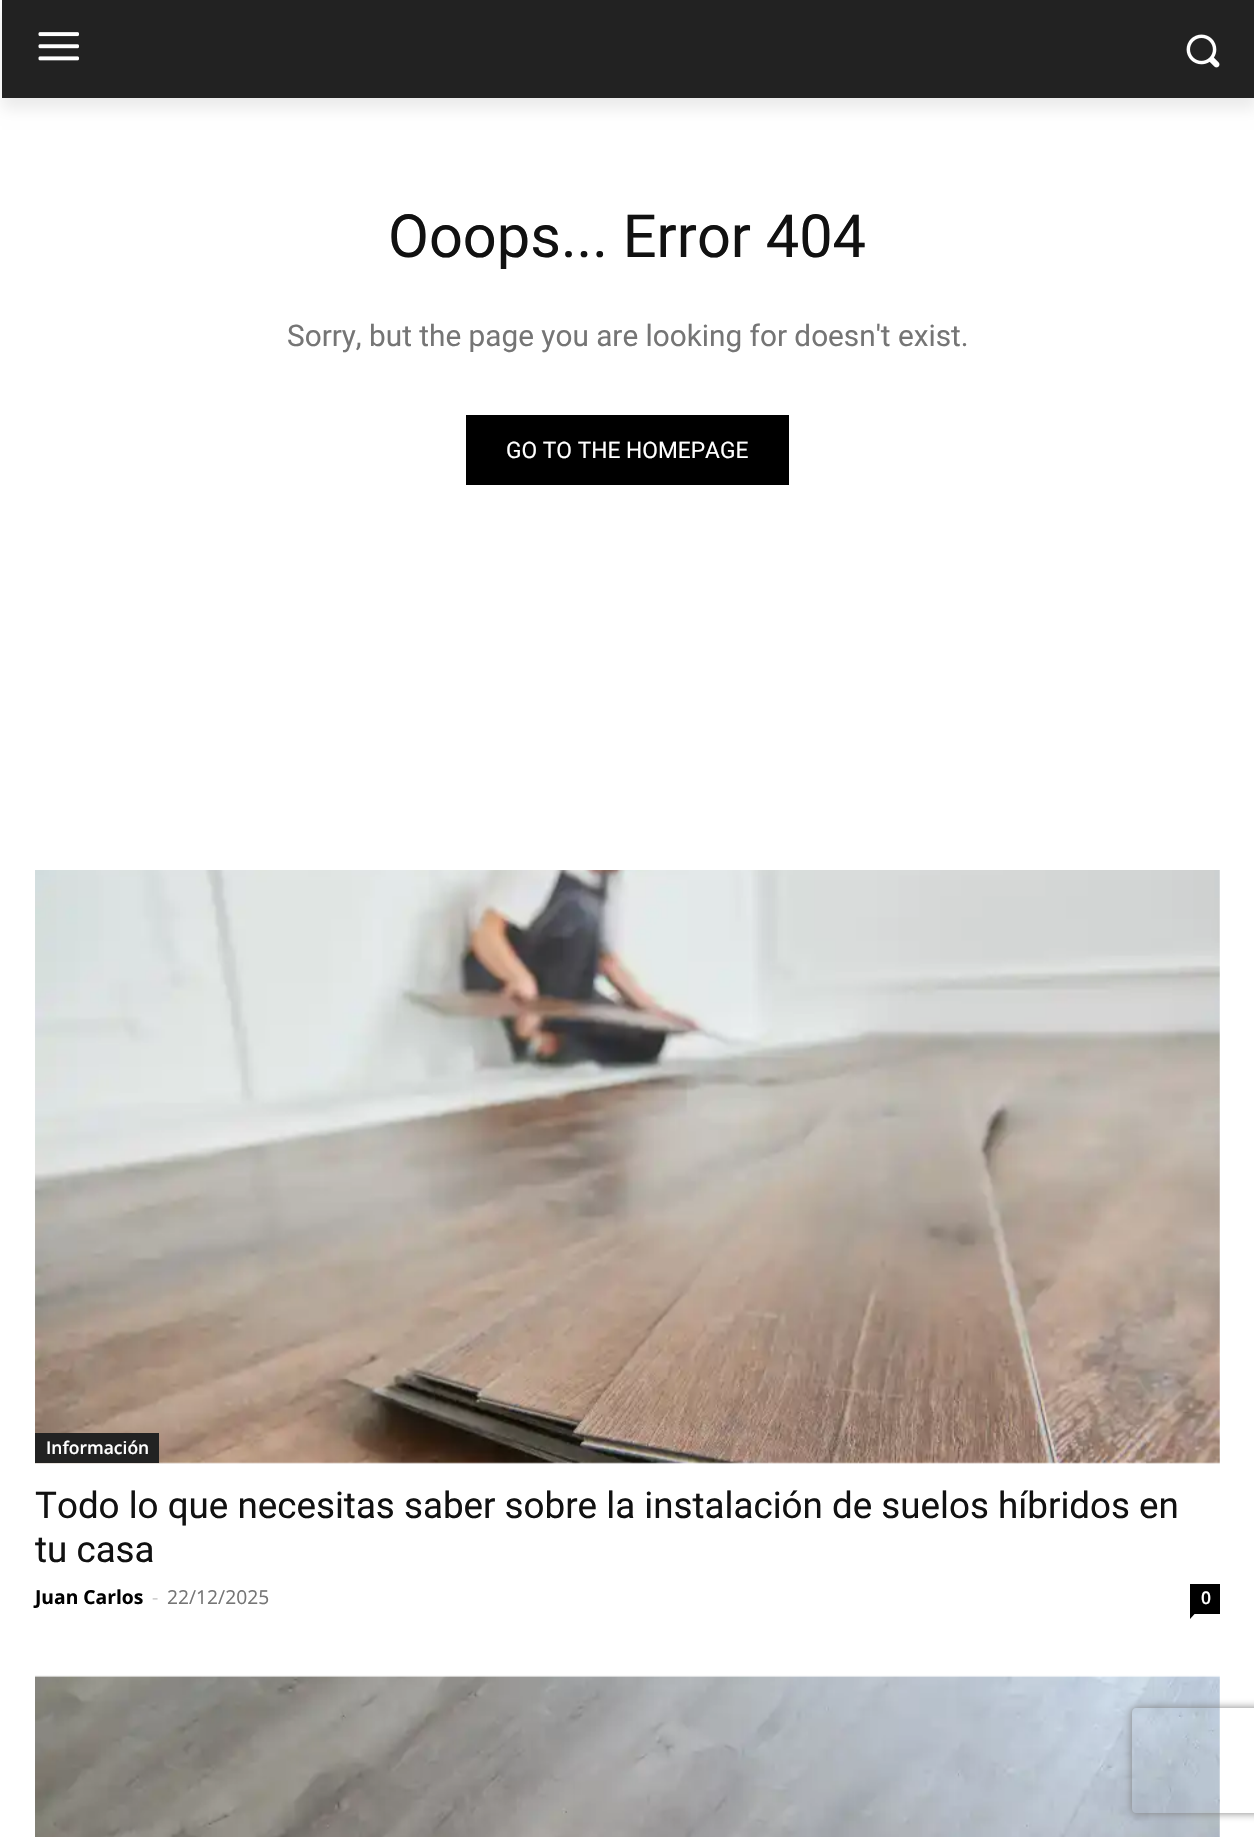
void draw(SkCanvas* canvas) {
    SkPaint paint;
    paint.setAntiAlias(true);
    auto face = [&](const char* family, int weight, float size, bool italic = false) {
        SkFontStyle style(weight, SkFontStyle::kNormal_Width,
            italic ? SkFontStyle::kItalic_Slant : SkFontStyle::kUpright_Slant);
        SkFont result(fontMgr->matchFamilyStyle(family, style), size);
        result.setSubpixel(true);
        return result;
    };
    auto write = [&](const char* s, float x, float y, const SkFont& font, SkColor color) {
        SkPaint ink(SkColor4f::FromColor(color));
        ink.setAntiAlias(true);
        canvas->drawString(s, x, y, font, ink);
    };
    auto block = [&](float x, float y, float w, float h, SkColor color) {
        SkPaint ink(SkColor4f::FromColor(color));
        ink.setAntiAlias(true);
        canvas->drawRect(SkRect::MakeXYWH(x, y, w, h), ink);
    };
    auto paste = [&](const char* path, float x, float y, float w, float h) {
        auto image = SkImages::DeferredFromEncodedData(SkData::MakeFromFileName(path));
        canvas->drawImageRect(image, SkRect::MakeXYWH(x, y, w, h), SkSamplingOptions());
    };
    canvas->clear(SK_ColorWHITE);
    block(2, 0, 1252, 98, SkColorSetRGB(34, 34, 34));
    paste("pic1.png", 38, 32, 41, 29);
    paste("pic2.png", 1186, 34, 34, 34);
    canvas->save();
    canvas->clipPath(SkPathBuilder(SkPathFillType::kEvenOdd).moveTo(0, 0).lineTo(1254, 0).lineTo(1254, 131).lineTo(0, 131).close().moveTo(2, 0).lineTo(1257, 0).lineTo(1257, 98).lineTo(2, 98).close().detach(), true);
    paint.setColor(SkColorSetARGB(20, 0, 0, 0));
    paint.setMaskFilter(SkMaskFilter::MakeBlur(kNormal_SkBlurStyle, 7));
    canvas->drawRect(SkRect::MakeXYWH(2, 11, 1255, 98), paint);
    paint.setMaskFilter(nullptr);
    canvas->restore();
    auto kFont1 = face("Roboto", 400, 59.5f);
    write("Ooops... Error 404", 388, 257, kFont1, SkColorSetRGB(17, 17, 17));
    auto kFont2 = face("Roboto", 400, 29.75f);
    write("Sorry, but the page you are looking for doesn't exist.", 287, 346, kFont2, SkColorSetRGB(117, 117, 117));
    block(466, 415, 323, 70, SK_ColorBLACK);
    auto kFont3 = face("Roboto", 400, 22.75f);
    write("GO TO THE HOMEPAGE", 506, 458, kFont3, SK_ColorWHITE);
    paste("pic3.png", 35, 870, 1185, 594);
    block(35, 1433, 124, 30, SkColorSetRGB(34, 34, 34));
    auto kFont4 = face("Open Sans", 600, 17.5f);
    write("Información", 46, 1454, kFont4, SK_ColorWHITE);
    auto kFont5 = face("Roboto", 400, 36.75f);
    write("Todo lo que necesitas saber sobre la instalación de suelos híbridos en", 35, 1518, kFont5, SkColorSetRGB(17, 17, 17));
    write("tu casa", 35, 1562, kFont5, SkColorSetRGB(17, 17, 17));
    auto kFont6 = face("Open Sans", 700, 19.25f);
    write("Juan Carlos", 35, 1604, kFont6, SK_ColorBLACK);
    auto kFont7 = face("Open Sans", 400, 19.25f);
    write("-", 152, 1604, kFont7, SkColorSetRGB(204, 204, 204));
    write("22/12/2025", 167, 1604, kFont7, SkColorSetRGB(117, 117, 117));
    block(1190, 1584, 30, 30, SK_ColorBLACK);
    write("0", 1201, 1604, kFont4, SK_ColorWHITE);
    paint.setColor(SK_ColorBLACK);
    canvas->drawPath(SkPathBuilder().moveTo(1190, 1613.5f).lineTo(1195, 1613.5f).lineTo(1190, 1619).close().detach(), paint);
    paste("pic4.png", 35, 1675, 1185, 162);
    canvas->save();
    canvas->clipPath(SkPathBuilder(SkPathFillType::kEvenOdd).moveTo(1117, 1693).lineTo(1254, 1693).lineTo(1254, 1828).lineTo(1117, 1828).close().moveTo(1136, 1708).lineTo(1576, 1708).cubicTo(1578, 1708, 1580, 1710, 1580, 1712).lineTo(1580, 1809).cubicTo(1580, 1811, 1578, 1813, 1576, 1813).lineTo(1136, 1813).cubicTo(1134, 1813, 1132, 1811, 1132, 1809).lineTo(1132, 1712).cubicTo(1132, 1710, 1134, 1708, 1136, 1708).close().detach(), true);
    paint.setColor(SkColorSetRGB(128, 128, 128));
    paint.setMaskFilter(SkMaskFilter::MakeBlur(kNormal_SkBlurStyle, 4.5f));
    canvas->drawRoundRect(SkRect::MakeXYWH(1132, 1708, 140, 105), 4, 4, paint);
    paint.setMaskFilter(nullptr);
    canvas->restore();
}
